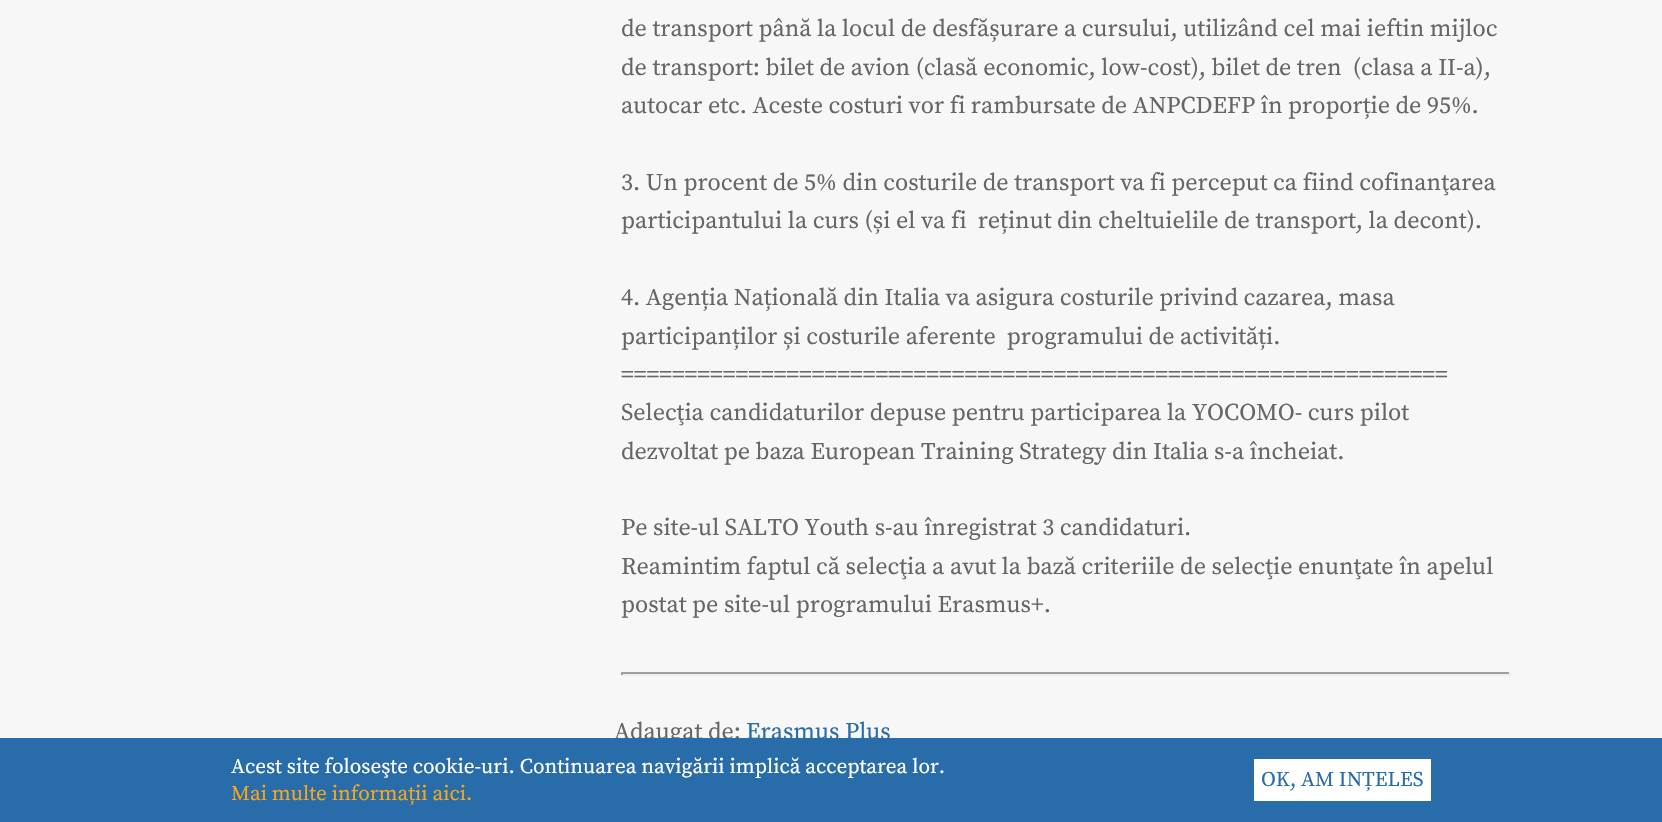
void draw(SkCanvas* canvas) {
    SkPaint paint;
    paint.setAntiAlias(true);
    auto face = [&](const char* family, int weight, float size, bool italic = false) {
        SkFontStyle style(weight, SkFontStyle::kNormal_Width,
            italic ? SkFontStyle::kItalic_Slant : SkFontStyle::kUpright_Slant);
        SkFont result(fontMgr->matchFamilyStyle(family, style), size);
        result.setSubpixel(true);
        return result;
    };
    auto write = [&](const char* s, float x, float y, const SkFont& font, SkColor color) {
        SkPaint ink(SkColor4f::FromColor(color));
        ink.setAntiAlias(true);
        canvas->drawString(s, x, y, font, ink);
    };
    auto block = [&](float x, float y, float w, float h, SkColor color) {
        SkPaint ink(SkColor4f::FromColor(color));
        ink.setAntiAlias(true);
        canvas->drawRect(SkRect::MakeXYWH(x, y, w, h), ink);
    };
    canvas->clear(SkColorSetRGB(247, 247, 247));
    auto kFont1 = face("Source Serif Pro", 400, 24);
    write("de transport până la locul de desfășurare a cursului, utilizând cel mai ieftin mijloc", 621, 36, kFont1, SkColorSetRGB(102, 102, 102));
    write("de transport: bilet de avion (clasă economic, low-cost), bilet de tren  (clasa a II-a),", 621, 75, kFont1, SkColorSetRGB(102, 102, 102));
    write("autocar etc. Aceste costuri vor fi rambursate de ANPCDEFP în proporție de 95%.", 621, 113, kFont1, SkColorSetRGB(102, 102, 102));
    write("3. Un procent de 5% din costurile de transport va fi perceput ca fiind cofinanţarea", 621, 190, kFont1, SkColorSetRGB(102, 102, 102));
    write("participantului la curs (și el va fi  reținut din cheltuielile de transport, la decont).", 621, 228, kFont1, SkColorSetRGB(102, 102, 102));
    write("4. Agenția Națională din Italia va asigura costurile privind cazarea, masa", 621, 305, kFont1, SkColorSetRGB(102, 102, 102));
    write("participanților și costurile aferente  programului de activități.", 621, 344, kFont1, SkColorSetRGB(102, 102, 102));
    write("=================================================================", 621, 382, kFont1, SkColorSetRGB(102, 102, 102));
    write("Selecţia candidaturilor depuse pentru participarea la YOCOMO- curs pilot", 621, 420, kFont1, SkColorSetRGB(102, 102, 102));
    write("dezvoltat pe baza European Training Strategy din Italia s-a încheiat.", 621, 459, kFont1, SkColorSetRGB(102, 102, 102));
    write("Pe site-ul SALTO Youth s-au înregistrat 3 candidaturi.", 621, 535, kFont1, SkColorSetRGB(102, 102, 102));
    write("Reamintim faptul că selecţia a avut la bază criteriile de selecţie enunţate în apelul", 621, 574, kFont1, SkColorSetRGB(102, 102, 102));
    write("postat pe site-ul programului Erasmus+.", 621, 612, kFont1, SkColorSetRGB(102, 102, 102));
    block(621, 672, 890, 2, SkColorSetRGB(159, 159, 159));
    block(1509, 672, 2, 3, SkColorSetRGB(238, 238, 238));
    block(621, 674, 890, 2, SkColorSetRGB(238, 238, 238));
    block(621, 672, 2, 3, SkColorSetRGB(159, 159, 159));
    write("Adaugat de:", 614, 739, kFont1, SkColorSetRGB(102, 102, 102));
    write("Erasmus Plus", 746, 739, kFont1, SkColorSetRGB(40, 108, 169));
    block(0, 738, 1662, 84, SkColorSetRGB(40, 108, 169));
    auto kFont2 = face("Source Serif Pro", 400, 21);
    write("Acest site foloseşte cookie-uri. Continuarea navigării implică acceptarea lor.", 231, 773, kFont2, SK_ColorWHITE);
    write("Mai multe informații aici.", 231, 800, kFont2, SkColorSetRGB(247, 167, 28));
    block(1254, 759, 177, 42, SK_ColorWHITE);
    write("OK, AM INȚELES", 1261, 786, kFont2, SkColorSetRGB(40, 108, 169));
}
